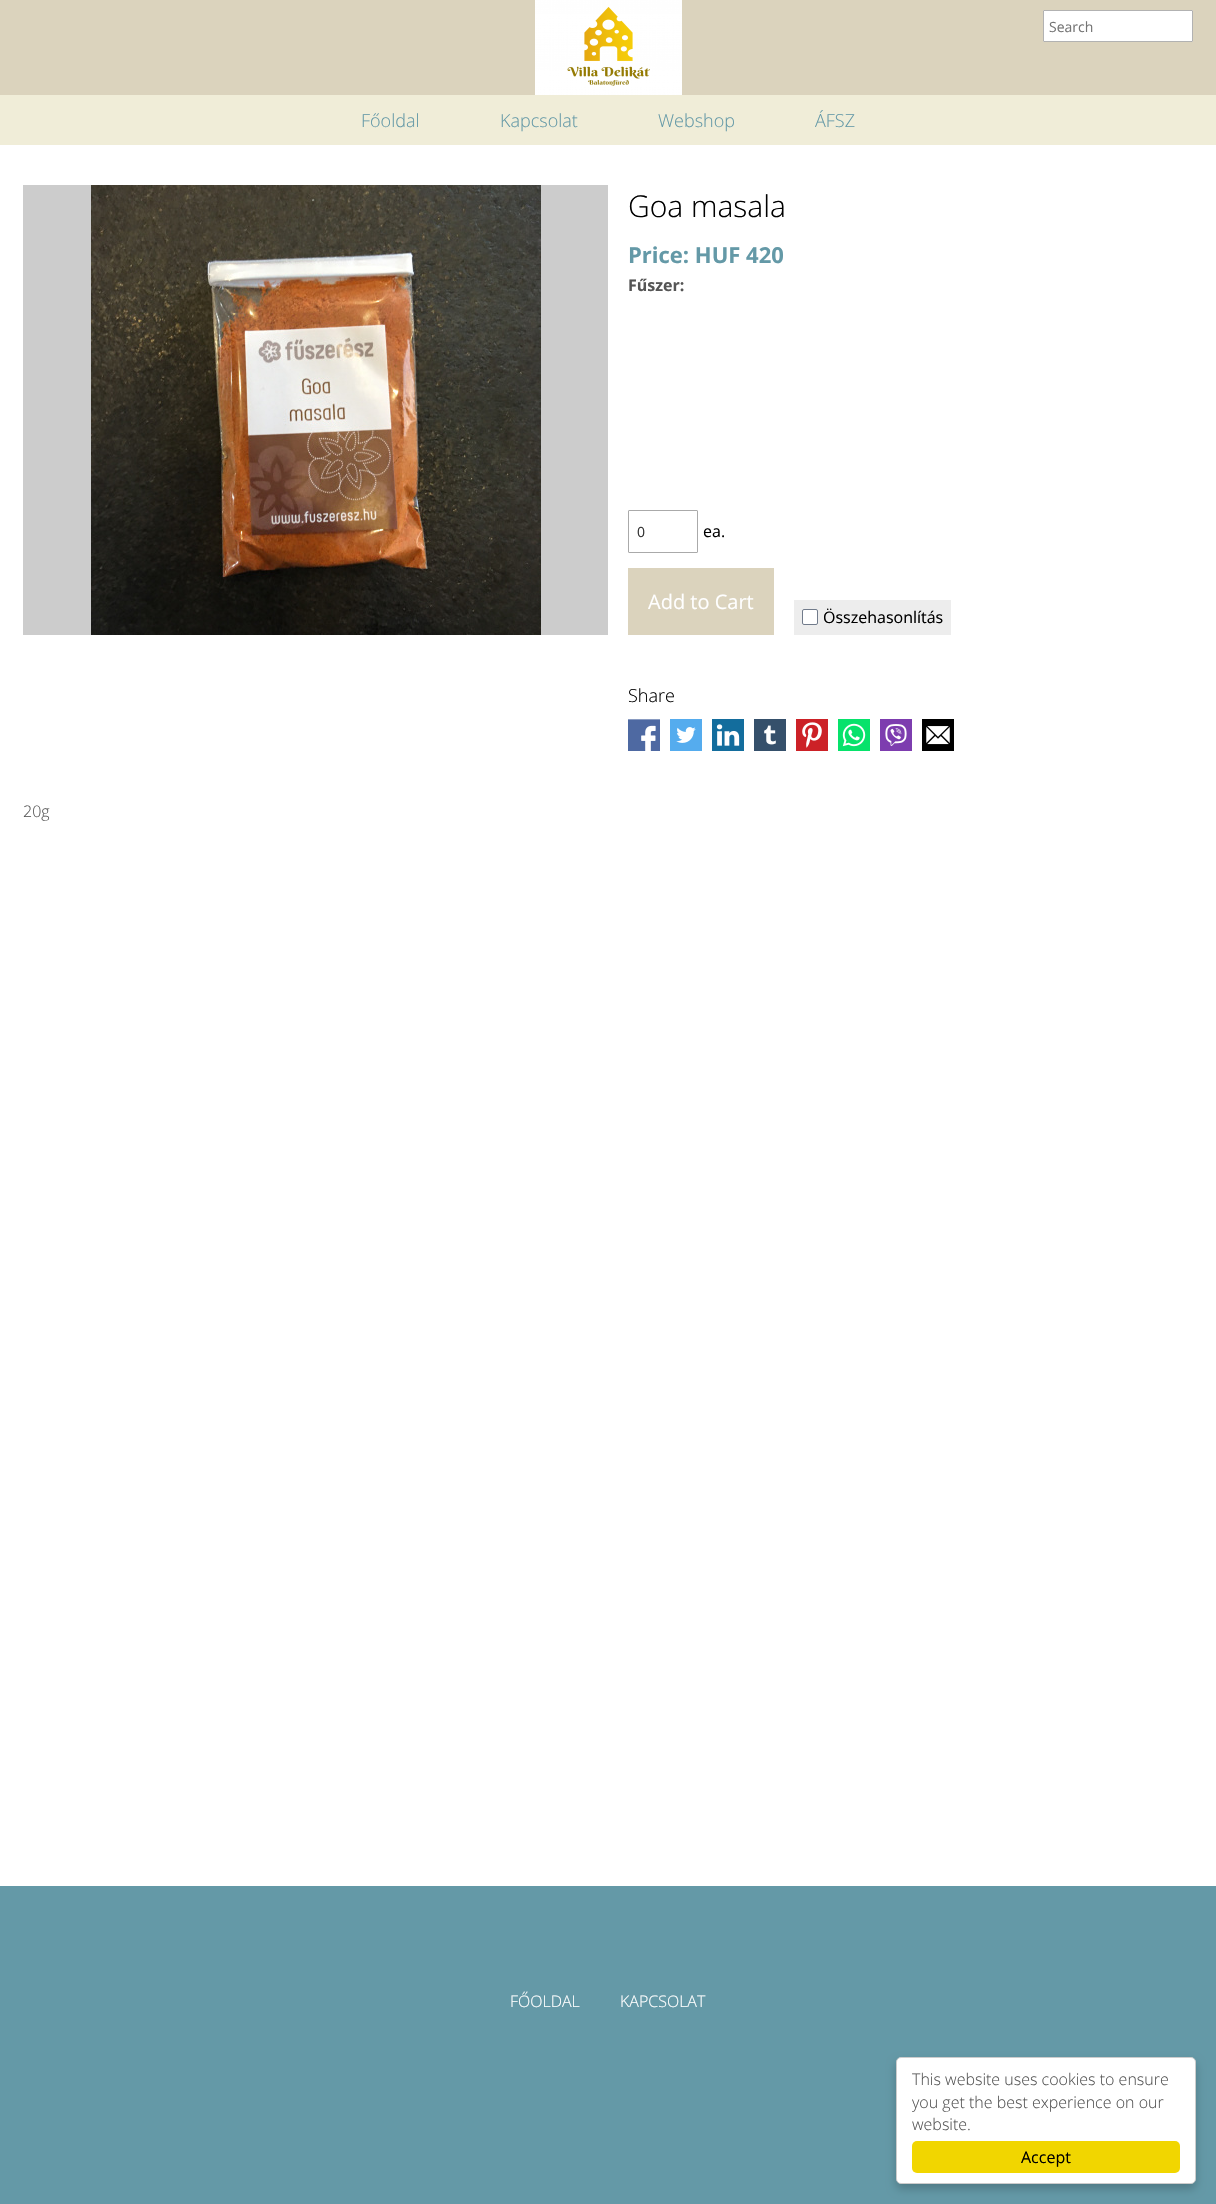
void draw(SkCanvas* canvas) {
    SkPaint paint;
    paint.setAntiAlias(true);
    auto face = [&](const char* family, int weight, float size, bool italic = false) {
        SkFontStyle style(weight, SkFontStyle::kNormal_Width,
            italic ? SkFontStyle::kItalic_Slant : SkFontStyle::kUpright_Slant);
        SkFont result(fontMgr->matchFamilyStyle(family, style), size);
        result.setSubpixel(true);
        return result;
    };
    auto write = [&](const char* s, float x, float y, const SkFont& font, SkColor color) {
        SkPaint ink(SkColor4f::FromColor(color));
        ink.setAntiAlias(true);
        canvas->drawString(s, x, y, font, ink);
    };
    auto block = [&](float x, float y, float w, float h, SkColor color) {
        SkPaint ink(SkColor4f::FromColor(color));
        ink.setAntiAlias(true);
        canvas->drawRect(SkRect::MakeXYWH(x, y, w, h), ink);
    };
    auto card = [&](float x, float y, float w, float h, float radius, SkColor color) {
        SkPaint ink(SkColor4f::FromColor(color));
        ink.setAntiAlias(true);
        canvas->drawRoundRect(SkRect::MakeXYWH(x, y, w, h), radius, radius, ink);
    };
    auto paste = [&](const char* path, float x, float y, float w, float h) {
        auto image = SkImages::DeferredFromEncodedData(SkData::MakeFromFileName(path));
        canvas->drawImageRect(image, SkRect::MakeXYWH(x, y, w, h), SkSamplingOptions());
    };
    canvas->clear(SK_ColorWHITE);
    block(0, 0, 1216, 95, SkColorSetRGB(219, 211, 189));
    block(0, 95, 1216, 50, SkColorSetRGB(240, 237, 216));
    paste("pic1.png", 535, 0, 147, 95);
    card(1043, 10, 150, 32, 1, SK_ColorWHITE);
    paint.setStyle(SkPaint::kStroke_Style);
    paint.setStrokeWidth(1);
    paint.setColor(SkColorSetARGB(77, 0, 0, 0));
    canvas->drawRoundRect(SkRect::MakeXYWH(1043.5f, 10.5f, 149, 31), 0.5f, 0.5f, paint);
    auto kFont1 = face("Open Sans", 400, 14);
    write("Search", 1049, 32, kFont1, SkColorSetRGB(117, 117, 117));
    auto kFont2 = face("Open Sans", 300, 18);
    write("Főoldal", 361, 127, kFont2, SkColorSetRGB(100, 153, 167));
    write("Kapcsolat", 500, 127, kFont2, SkColorSetRGB(100, 153, 167));
    write("Webshop", 658, 127, kFont2, SkColorSetRGB(100, 153, 167));
    write("ÁFSZ", 815, 127, kFont2, SkColorSetRGB(100, 153, 167));
    block(23, 185, 585, 450, SkColorSetRGB(204, 204, 204));
    paste("pic2.png", 91, 185, 450, 450);
    auto kFont3 = face("Open Sans", 300, 30);
    write("Goa masala", 628, 217, kFont3, SK_ColorBLACK);
    auto kFont4 = face("Open Sans", 700, 22);
    write("Price: HUF 420", 628, 263, kFont4, SkColorSetRGB(100, 153, 167));
    auto kFont5 = face("Open Sans", 700, 16);
    write("Fűszer:", 628, 291, kFont5, SkColorSetRGB(85, 85, 85));
    paint.setColor(SkColorSetRGB(170, 170, 170));
    canvas->drawRoundRect(SkRect::MakeXYWH(628.5f, 510.5f, 69, 42), 0.5f, 0.5f, paint);
    write("0", 637, 537, kFont1, SkColorSetRGB(51, 51, 51));
    auto kFont6 = face("Open Sans", 400, 16);
    write("ea.", 703, 537, kFont6, SK_ColorBLACK);
    block(628, 568, 146, 67, SkColorSetRGB(219, 211, 189));
    auto kFont7 = face("Open Sans", 400, 20);
    write("Add to Cart", 648, 609, kFont7, SK_ColorWHITE);
    block(794, 600, 157, 35, SkColorSetRGB(237, 237, 237));
    paint.setStyle(SkPaint::kFill_Style);
    paint.setColor(SK_ColorWHITE);
    canvas->drawRoundRect(SkRect::MakeXYWH(802.5f, 609.5f, 15, 15), 1.5f, 1.5f, paint);
    paint.setStyle(SkPaint::kStroke_Style);
    paint.setColor(SkColorSetRGB(113, 123, 139));
    canvas->drawRoundRect(SkRect::MakeXYWH(802.5f, 609.5f, 15, 15), 1.5f, 1.5f, paint);
    write("Összehasonlítás", 823, 623, kFont6, SK_ColorBLACK);
    write("Share", 628, 702, kFont2, SK_ColorBLACK);
    paste("pic3.png", 628, 719, 32, 32);
    paste("pic4.png", 670, 719, 32, 32);
    paste("pic5.png", 712, 719, 32, 32);
    paste("pic6.png", 754, 719, 32, 32);
    paste("pic7.png", 796, 719, 32, 32);
    paste("pic8.png", 838, 719, 32, 32);
    paste("pic9.png", 880, 719, 32, 32);
    paste("pic10.png", 922, 719, 32, 32);
    auto kFont8 = face("Open Sans", 300, 16);
    write("20g", 23, 817, kFont8, SkColorSetRGB(85, 85, 85));
    block(0, 1886, 1216, 318, SkColorSetRGB(100, 153, 167));
    write("FŐOLDAL", 510, 2007, kFont8, SK_ColorWHITE);
    write("KAPCSOLAT", 620, 2007, kFont8, SK_ColorWHITE);
    paint.setStyle(SkPaint::kFill_Style);
    paint.setColor(SkColorSetARGB(51, 0, 0, 0));
    paint.setMaskFilter(SkMaskFilter::MakeBlur(kNormal_SkBlurStyle, 5));
    canvas->drawRoundRect(SkRect::MakeXYWH(896, 2062, 300, 127), 5, 5, paint);
    paint.setMaskFilter(nullptr);
    paint.setColor(SK_ColorWHITE);
    canvas->drawRoundRect(SkRect::MakeXYWH(896.5f, 2057.5f, 299, 126), 4.5f, 4.5f, paint);
    paint.setStyle(SkPaint::kStroke_Style);
    paint.setColor(SkColorSetRGB(204, 204, 204));
    canvas->drawRoundRect(SkRect::MakeXYWH(896.5f, 2057.5f, 299, 126), 4.5f, 4.5f, paint);
    write("This website uses cookies to ensure", 912, 2085, kFont8, SkColorSetRGB(85, 85, 85));
    write("you get the best experience on our", 912, 2108, kFont8, SkColorSetRGB(85, 85, 85));
    write("website.", 912, 2130, kFont8, SkColorSetRGB(85, 85, 85));
    card(912, 2141, 268, 32, 5, SkColorSetRGB(241, 214, 0));
    write("Accept", 1021, 2163, kFont6, SK_ColorBLACK);
}
